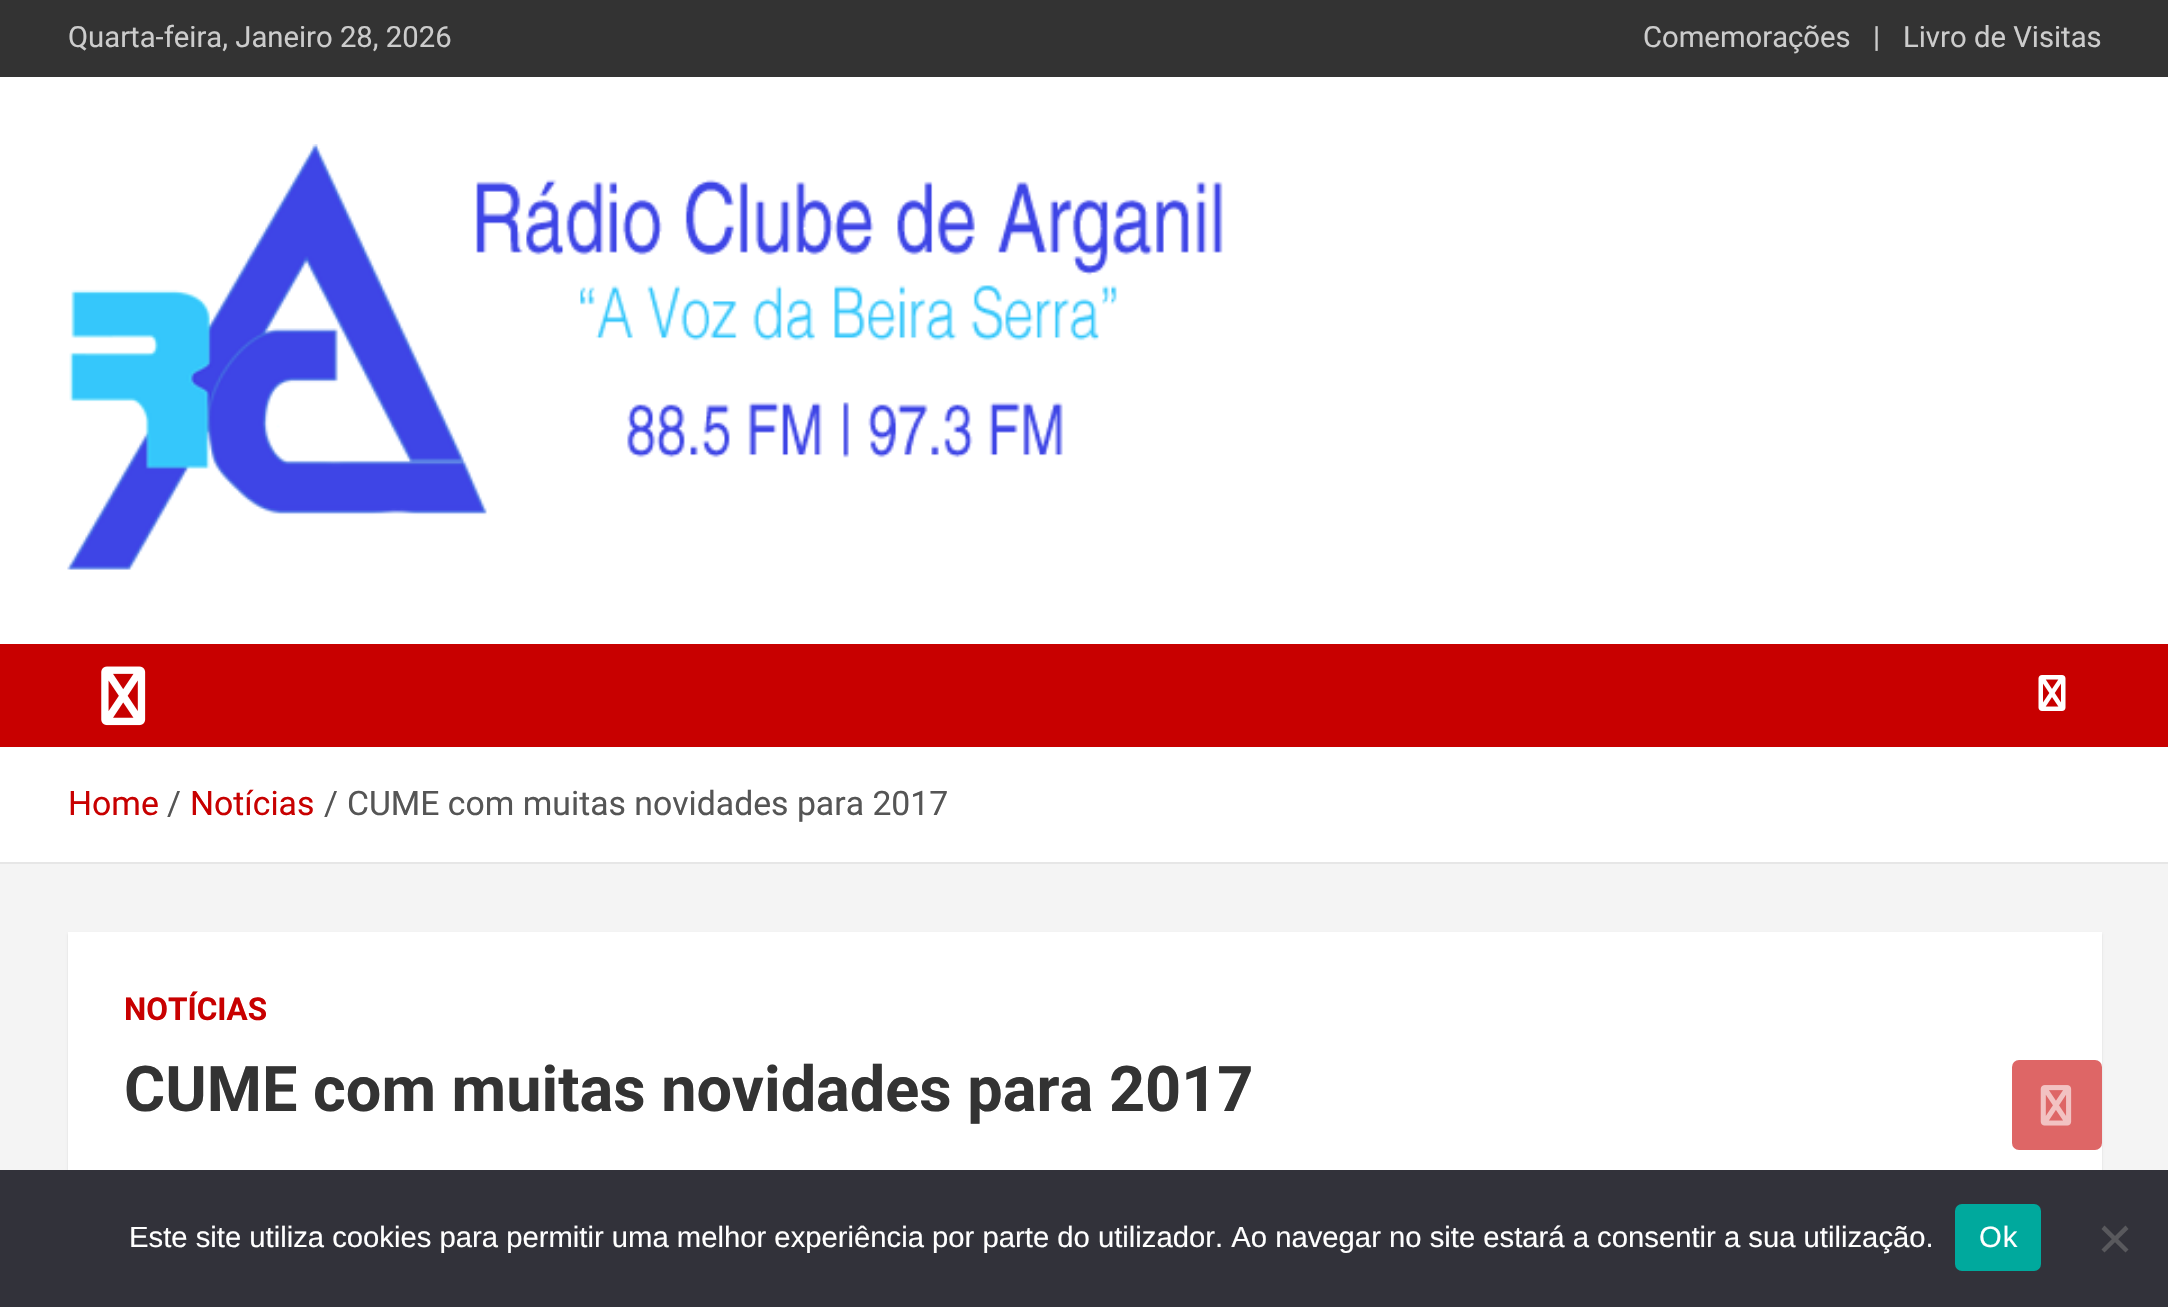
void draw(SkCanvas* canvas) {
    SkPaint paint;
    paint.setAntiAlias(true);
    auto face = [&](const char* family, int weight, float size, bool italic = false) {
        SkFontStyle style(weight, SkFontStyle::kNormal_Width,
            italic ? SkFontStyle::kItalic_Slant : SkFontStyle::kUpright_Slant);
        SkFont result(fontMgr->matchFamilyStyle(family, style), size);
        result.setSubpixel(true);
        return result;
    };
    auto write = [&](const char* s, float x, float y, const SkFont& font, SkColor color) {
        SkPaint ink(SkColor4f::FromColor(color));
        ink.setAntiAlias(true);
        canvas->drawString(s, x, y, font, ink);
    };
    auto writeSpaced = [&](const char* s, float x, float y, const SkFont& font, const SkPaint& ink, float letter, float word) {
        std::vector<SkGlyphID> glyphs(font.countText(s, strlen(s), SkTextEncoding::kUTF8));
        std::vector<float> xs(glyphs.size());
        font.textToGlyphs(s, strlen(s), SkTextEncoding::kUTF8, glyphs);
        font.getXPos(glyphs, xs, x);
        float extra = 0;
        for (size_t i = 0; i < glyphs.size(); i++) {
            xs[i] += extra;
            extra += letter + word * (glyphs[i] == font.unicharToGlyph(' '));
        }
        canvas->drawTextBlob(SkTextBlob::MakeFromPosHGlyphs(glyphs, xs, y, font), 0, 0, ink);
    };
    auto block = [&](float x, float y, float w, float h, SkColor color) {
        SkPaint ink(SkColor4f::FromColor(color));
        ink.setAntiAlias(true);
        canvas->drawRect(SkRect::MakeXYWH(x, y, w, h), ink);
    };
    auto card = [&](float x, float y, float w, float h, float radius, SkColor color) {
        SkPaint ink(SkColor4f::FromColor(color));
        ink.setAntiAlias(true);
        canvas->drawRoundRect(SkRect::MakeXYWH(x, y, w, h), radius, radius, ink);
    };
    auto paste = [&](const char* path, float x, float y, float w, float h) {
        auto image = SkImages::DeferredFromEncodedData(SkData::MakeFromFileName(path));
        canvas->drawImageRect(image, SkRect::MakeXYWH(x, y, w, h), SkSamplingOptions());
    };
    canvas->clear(SkColorSetRGB(244, 244, 244));
    block(0, 0, 2168, 77, SkColorSetRGB(51, 51, 51));
    auto kFont1 = face("Roboto", 400, 29.25f);
    write("Quarta-feira, Janeiro 28, 2026", 68, 47, kFont1, SkColorSetRGB(204, 204, 204));
    write("Comemorações", 1643, 47, kFont1, SkColorSetRGB(204, 204, 204));
    write("|", 1873, 47, kFont1, SkColorSetRGB(204, 204, 204));
    write("Livro de Visitas", 1903, 47, kFont1, SkColorSetRGB(204, 204, 204));
    block(0, 77, 2168, 567, SK_ColorWHITE);
    paste("pic1.png", 67, 144, 1156, 426);
    block(0, 644, 2168, 103, SkColorSetRGB(200, 0, 0));
    paste("pic2.png", 101, 666, 45, 60);
    paste("pic3.png", 2038, 675, 28, 36);
    block(0, 747, 2168, 115, SK_ColorWHITE);
    block(0, 862, 2168, 2, SkColorSetRGB(230, 230, 230));
    auto kFont2 = face("Roboto", 400, 33.75f);
    write("Home", 68, 815, kFont2, SkColorSetRGB(200, 0, 0));
    write("/", 167, 815, kFont2, SkColorSetRGB(85, 85, 85));
    write("Notícias", 190, 815, kFont2, SkColorSetRGB(200, 0, 0));
    write("/", 324, 815, kFont2, SkColorSetRGB(85, 85, 85));
    write("CUME com muitas novidades para 2017", 347, 815, kFont2, SkColorSetRGB(85, 85, 85));
    paint.setColor(SkColorSetARGB(26, 0, 0, 0));
    paint.setMaskFilter(SkMaskFilter::MakeBlur(kNormal_SkBlurStyle, 1));
    canvas->drawRect(SkRect::MakeXYWH(68, 934, 2034, 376), paint);
    paint.setMaskFilter(nullptr);
    block(68, 932, 2034, 238, SK_ColorWHITE);
    auto kFont3 = face("Roboto", 700, 31.5f);
    write("NOTÍCIAS", 124, 1020, kFont3, SkColorSetRGB(200, 0, 0));
    auto kFont4 = face("Roboto", 700, 63);
    write("CUME com muitas novidades para 2017", 124, 1111, kFont4, SkColorSetRGB(51, 51, 51));
    card(2012, 1060, 90, 90, 7, SkColorSetRGB(222, 102, 102));
    paste("pic4.png", 2040, 1085, 32, 41);
    block(0, 1170, 2168, 137, SkColorSetRGB(50, 50, 58));
    auto kFont5 = face("Liberation Sans", 400, 29.25f);
    write("Este site utiliza cookies para permitir uma melhor experiência por parte do utilizador. Ao navegar no site estará a consentir a sua utilização.", 129, 1247, kFont5, SK_ColorWHITE);
    card(1955, 1204, 86, 67, 7, SkColorSetRGB(0, 169, 157));
    paint.setColor(SK_ColorWHITE);
    writeSpaced("Ok", 1979, 1247, kFont5, paint, 1, 0);
    paint.setColor(SkColorSetRGB(89, 89, 93));
    canvas->drawPath(SkPathBuilder().moveTo(2125.5f, 1225.5f).lineTo(2128.5f, 1229).lineTo(2104.5f, 1252.5f).lineTo(2101.5f, 1249.5f).close().detach(), paint);
    canvas->drawPath(SkPathBuilder().moveTo(2101.5f, 1229).lineTo(2104.5f, 1225.5f).lineTo(2128.5f, 1249.5f).lineTo(2125.5f, 1252.5f).close().detach(), paint);
}
